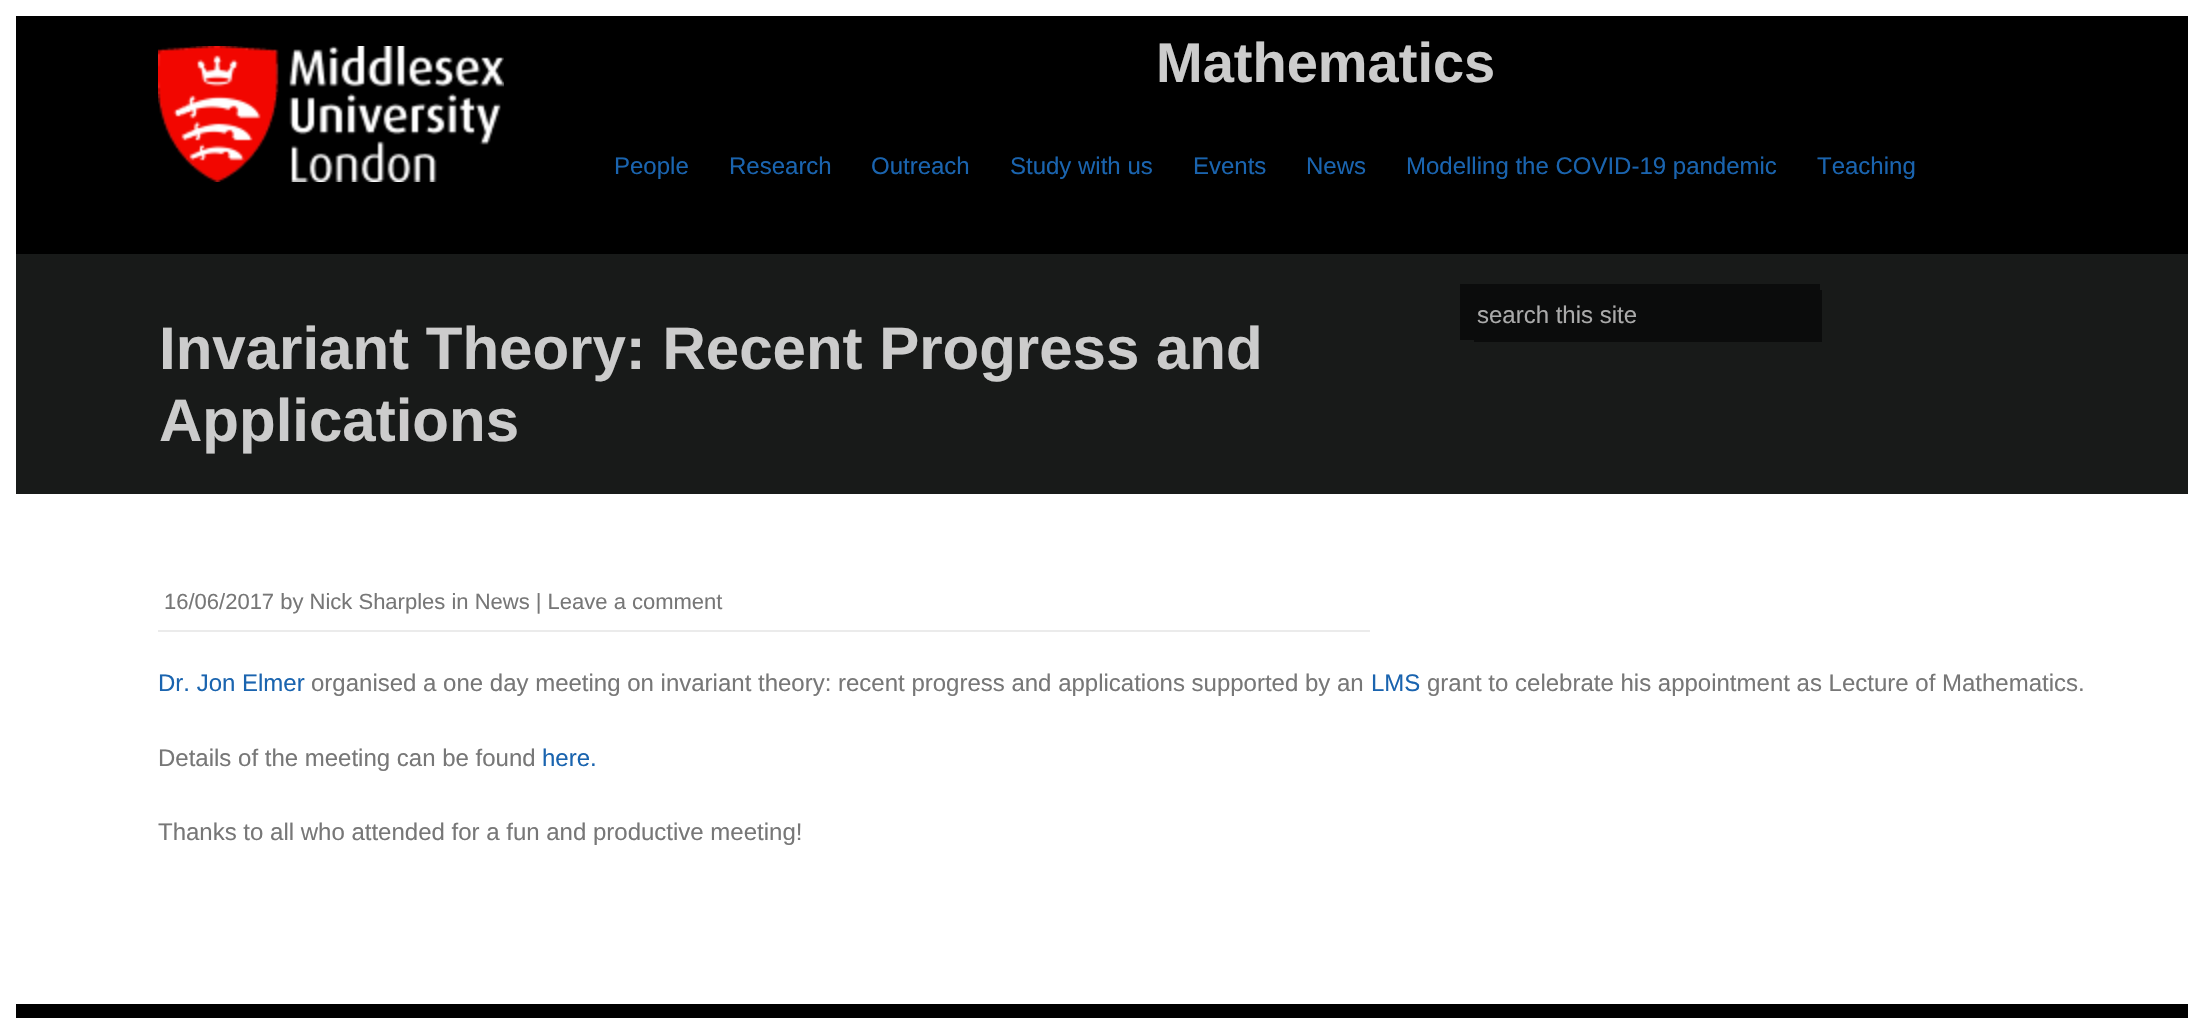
void draw(SkCanvas* canvas) {
    SkPaint paint;
    paint.setAntiAlias(true);
    auto face = [&](const char* family, int weight, float size, bool italic = false) {
        SkFontStyle style(weight, SkFontStyle::kNormal_Width,
            italic ? SkFontStyle::kItalic_Slant : SkFontStyle::kUpright_Slant);
        SkFont result(fontMgr->matchFamilyStyle(family, style), size);
        result.setSubpixel(true);
        return result;
    };
    auto write = [&](const char* s, float x, float y, const SkFont& font, SkColor color) {
        SkPaint ink(SkColor4f::FromColor(color));
        ink.setAntiAlias(true);
        canvas->drawString(s, x, y, font, ink);
    };
    auto block = [&](float x, float y, float w, float h, SkColor color) {
        SkPaint ink(SkColor4f::FromColor(color));
        ink.setAntiAlias(true);
        canvas->drawRect(SkRect::MakeXYWH(x, y, w, h), ink);
    };
    auto paste = [&](const char* path, float x, float y, float w, float h) {
        auto image = SkImages::DeferredFromEncodedData(SkData::MakeFromFileName(path));
        canvas->drawImageRect(image, SkRect::MakeXYWH(x, y, w, h), SkSamplingOptions());
    };
    canvas->clear(SK_ColorWHITE);
    block(16, 16, 2172, 238, SK_ColorBLACK);
    paste("pic1.png", 158, 46, 346, 136);
    auto kFont1 = face("Liberation Sans", 700, 56);
    write("Mathematics", 1156, 82, kFont1, SkColorSetRGB(204, 204, 204));
    auto kFont2 = face("Liberation Sans", 400, 24);
    write("People", 614, 174, kFont2, SkColorSetRGB(26, 100, 175));
    write("Research", 729, 174, kFont2, SkColorSetRGB(26, 100, 175));
    write("Outreach", 871, 174, kFont2, SkColorSetRGB(26, 100, 175));
    write("Study with us", 1010, 174, kFont2, SkColorSetRGB(26, 100, 175));
    write("Events", 1193, 174, kFont2, SkColorSetRGB(26, 100, 175));
    write("News", 1306, 174, kFont2, SkColorSetRGB(26, 100, 175));
    write("Modelling the COVID-19 pandemic", 1406, 174, kFont2, SkColorSetRGB(26, 100, 175));
    write("Teaching", 1817, 174, kFont2, SkColorSetRGB(26, 100, 175));
    block(16, 254, 2172, 240, SkColorSetRGB(24, 26, 25));
    block(1460, 284, 360, 56, SkColorSetRGB(11, 12, 12));
    block(1474, 290, 348, 52, SkColorSetRGB(11, 12, 12));
    write("search this site", 1477, 323, kFont2, SkColorSetRGB(170, 170, 170));
    auto kFont3 = face("Liberation Sans", 700, 60);
    write("Invariant Theory: Recent Progress and", 159, 369, kFont3, SkColorSetRGB(204, 204, 204));
    write("Applications", 159, 441, kFont3, SkColorSetRGB(204, 204, 204));
    block(158, 630, 1212, 2, SkColorSetRGB(235, 235, 235));
    auto kFont4 = face("Liberation Sans", 400, 22);
    write("16/06/2017 by Nick Sharples in News | Leave a comment", 164, 609, kFont4, SkColorSetRGB(119, 119, 119));
    write("Dr. Jon Elmer", 158, 691, kFont2, SkColorSetRGB(26, 100, 175));
    write("organised a one day meeting on invariant theory: recent progress and applications supported by an", 311, 691, kFont2, SkColorSetRGB(119, 119, 119));
    write("LMS", 1371, 691, kFont2, SkColorSetRGB(26, 100, 175));
    write("grant to celebrate his appointment as Lecture of Mathematics.", 1427, 691, kFont2, SkColorSetRGB(119, 119, 119));
    write("Details of the meeting can be found", 158, 766, kFont2, SkColorSetRGB(119, 119, 119));
    write("here.", 542, 766, kFont2, SkColorSetRGB(26, 100, 175));
    write("Thanks to all who attended for a fun and productive meeting!", 158, 840, kFont2, SkColorSetRGB(119, 119, 119));
    block(16, 1004, 2172, 14, SK_ColorBLACK);
}
